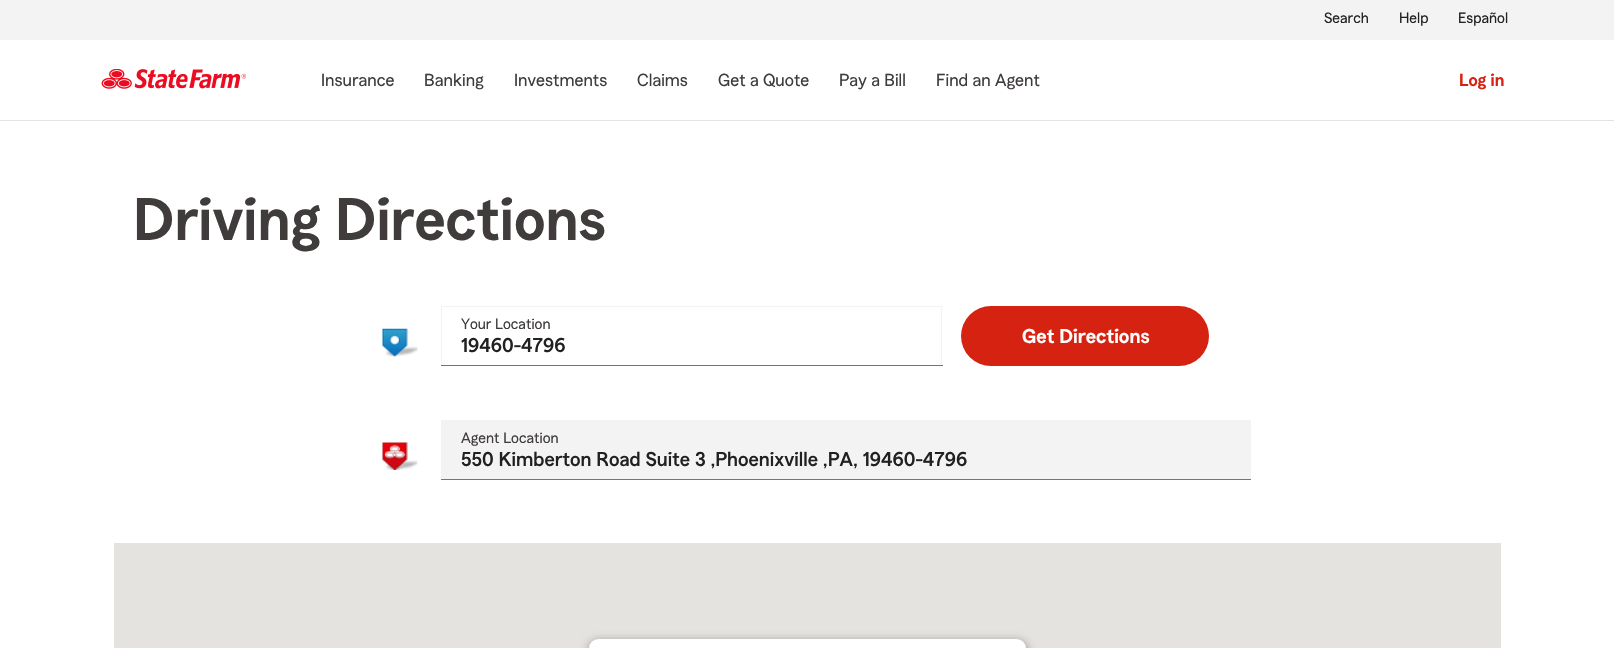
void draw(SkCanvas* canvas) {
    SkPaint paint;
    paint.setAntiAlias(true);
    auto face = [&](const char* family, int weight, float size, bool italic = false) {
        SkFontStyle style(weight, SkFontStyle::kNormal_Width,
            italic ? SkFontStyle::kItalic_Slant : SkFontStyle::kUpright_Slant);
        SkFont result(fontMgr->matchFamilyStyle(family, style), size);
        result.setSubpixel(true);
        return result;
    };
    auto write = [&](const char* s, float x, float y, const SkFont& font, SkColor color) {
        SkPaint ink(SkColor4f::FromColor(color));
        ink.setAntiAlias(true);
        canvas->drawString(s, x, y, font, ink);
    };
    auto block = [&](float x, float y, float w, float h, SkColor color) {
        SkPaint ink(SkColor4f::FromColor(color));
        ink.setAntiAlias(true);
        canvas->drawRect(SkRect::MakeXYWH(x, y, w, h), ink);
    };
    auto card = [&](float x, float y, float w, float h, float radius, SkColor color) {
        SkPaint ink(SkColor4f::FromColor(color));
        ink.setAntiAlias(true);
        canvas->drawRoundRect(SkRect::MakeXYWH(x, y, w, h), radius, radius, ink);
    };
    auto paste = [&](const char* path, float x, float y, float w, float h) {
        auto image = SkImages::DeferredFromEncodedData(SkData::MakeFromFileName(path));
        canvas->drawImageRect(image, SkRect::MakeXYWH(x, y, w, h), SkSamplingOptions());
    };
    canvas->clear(SK_ColorWHITE);
    block(0, 120, 1614, 1, SkColorSetRGB(228, 227, 227));
    paste("pic1.png", 101, 69, 146, 20);
    block(0, 0, 1614, 40, SkColorSetRGB(244, 243, 243));
    auto kFont1 = face("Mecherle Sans", 400, 15);
    write("Search", 1324, 23, kFont1, SkColorSetRGB(33, 33, 33));
    write("Help", 1399, 23, kFont1, SkColorSetRGB(33, 33, 33));
    write("Español", 1458, 23, kFont1, SkColorSetRGB(33, 33, 33));
    auto kFont2 = face("Mecherle Sans", 400, 17.5f);
    write("Insurance", 321, 86, kFont2, SkColorSetRGB(64, 60, 60));
    write("Banking", 424, 86, kFont2, SkColorSetRGB(64, 60, 60));
    write("Investments", 514, 86, kFont2, SkColorSetRGB(64, 60, 60));
    write("Claims", 637, 86, kFont2, SkColorSetRGB(64, 60, 60));
    write("Get a Quote", 718, 86, kFont2, SkColorSetRGB(64, 60, 60));
    write("Pay a Bill", 839, 86, kFont2, SkColorSetRGB(64, 60, 60));
    write("Find an Agent", 936, 86, kFont2, SkColorSetRGB(64, 60, 60));
    auto kFont3 = face("Mecherle Sans", 600, 17.5f);
    write("Log in", 1459, 86, kFont3, SkColorSetRGB(214, 35, 17));
    auto kFont4 = face("Mecherle Sans", 600, 60);
    write("Driving Directions", 133, 240, kFont4, SkColorSetRGB(64, 60, 60));
    paste("pic2.png", 382, 328, 36, 29);
    write("Your Location", 461, 329, kFont1, SkColorSetRGB(64, 60, 60));
    block(441, 306, 502, 1, SkColorSetRGB(244, 243, 243));
    block(441, 306, 1, 60, SkColorSetRGB(244, 243, 243));
    block(941, 306, 1, 60, SkColorSetRGB(244, 243, 243));
    block(441, 365, 502, 1, SkColorSetRGB(118, 118, 118));
    auto kFont5 = face("Mecherle Sans", 500, 20);
    write("19460-4796", 461, 352, kFont5, SkColorSetRGB(33, 33, 33));
    card(961, 306, 248, 60, 30, SkColorSetRGB(214, 35, 17));
    auto kFont6 = face("Mecherle Sans", 600, 20);
    write("Get Directions", 1022, 343, kFont6, SK_ColorWHITE);
    paste("pic3.png", 382, 442, 36, 28);
    block(441, 420, 810, 59, SkColorSetRGB(244, 243, 243));
    write("Agent Location", 461, 443, kFont1, SkColorSetRGB(64, 60, 60));
    block(441, 479, 810, 1, SkColorSetRGB(118, 118, 118));
    write("550 Kimberton Road Suite 3 ,Phoenixville ,PA, 19460-4796", 461, 466, kFont5, SkColorSetRGB(33, 33, 33));
    block(114, 543, 1387, 105, SkColorSetRGB(229, 227, 223));
    paint.setColor(SkColorSetARGB(77, 0, 0, 0));
    paint.setMaskFilter(SkMaskFilter::MakeBlur(kNormal_SkBlurStyle, 4.5f));
    canvas->drawRoundRect(SkRect::MakeXYWH(588, 640, 440, 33), 11, 11, paint);
    paint.setMaskFilter(nullptr);
    card(589, 639, 437, 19, 10, SK_ColorWHITE);
}
